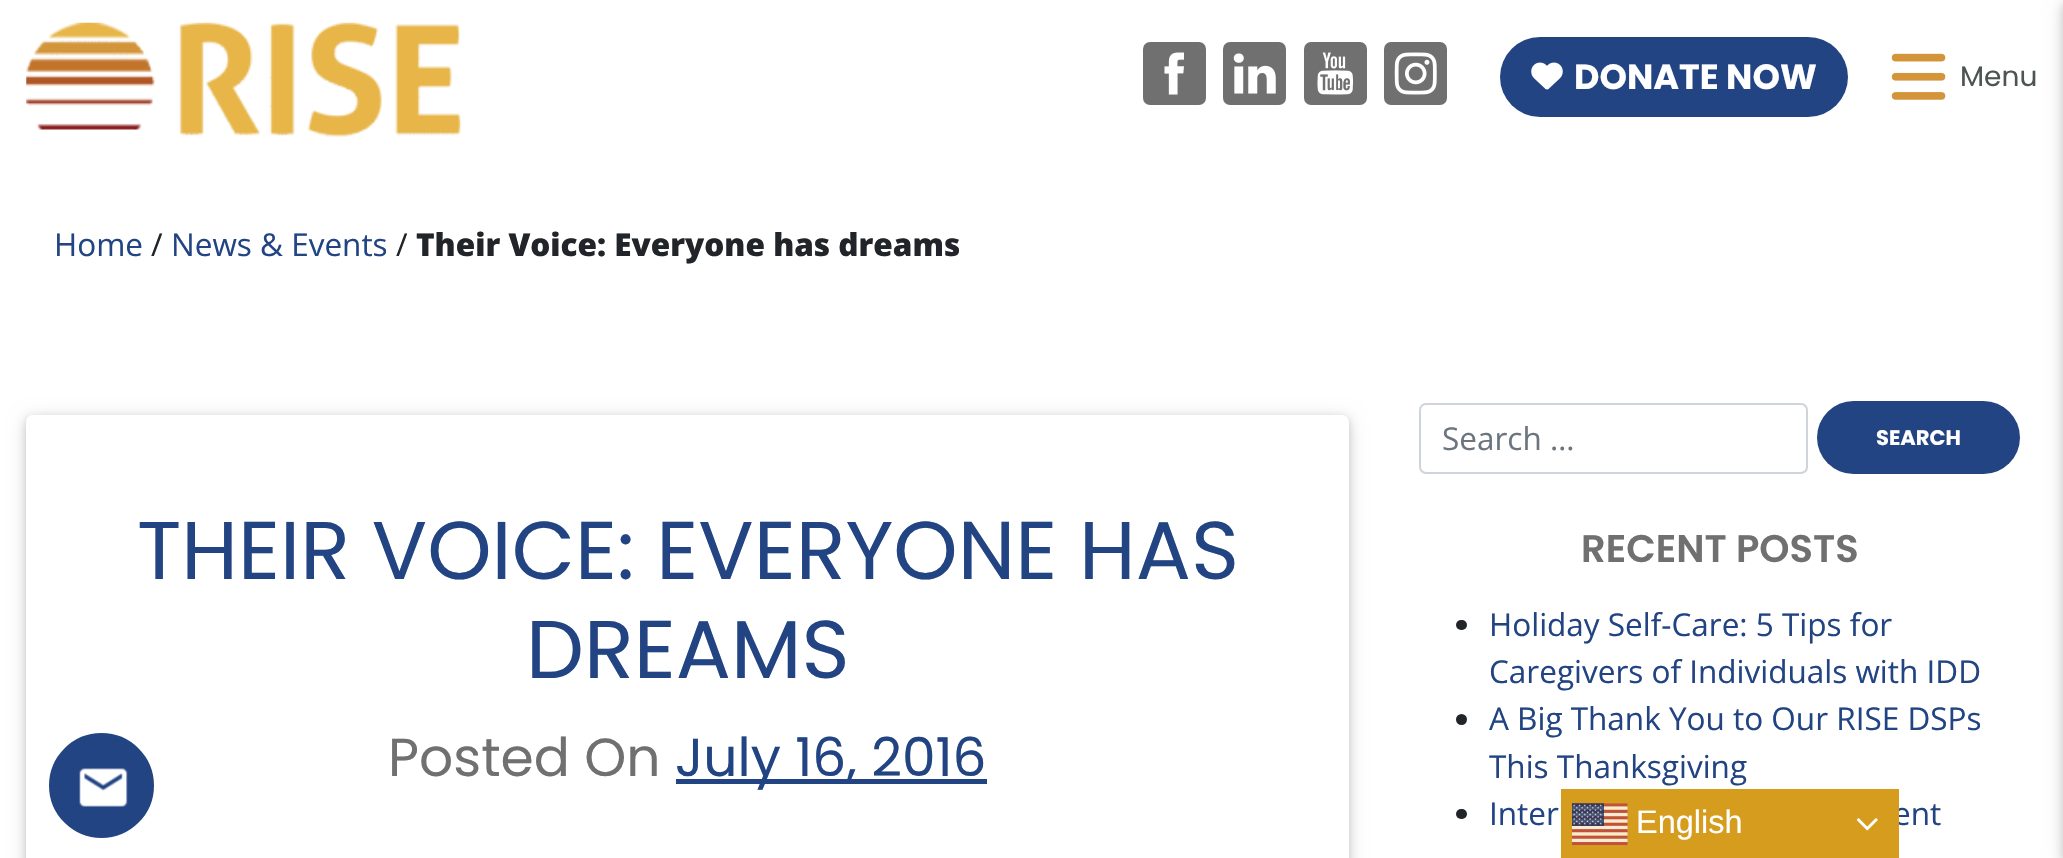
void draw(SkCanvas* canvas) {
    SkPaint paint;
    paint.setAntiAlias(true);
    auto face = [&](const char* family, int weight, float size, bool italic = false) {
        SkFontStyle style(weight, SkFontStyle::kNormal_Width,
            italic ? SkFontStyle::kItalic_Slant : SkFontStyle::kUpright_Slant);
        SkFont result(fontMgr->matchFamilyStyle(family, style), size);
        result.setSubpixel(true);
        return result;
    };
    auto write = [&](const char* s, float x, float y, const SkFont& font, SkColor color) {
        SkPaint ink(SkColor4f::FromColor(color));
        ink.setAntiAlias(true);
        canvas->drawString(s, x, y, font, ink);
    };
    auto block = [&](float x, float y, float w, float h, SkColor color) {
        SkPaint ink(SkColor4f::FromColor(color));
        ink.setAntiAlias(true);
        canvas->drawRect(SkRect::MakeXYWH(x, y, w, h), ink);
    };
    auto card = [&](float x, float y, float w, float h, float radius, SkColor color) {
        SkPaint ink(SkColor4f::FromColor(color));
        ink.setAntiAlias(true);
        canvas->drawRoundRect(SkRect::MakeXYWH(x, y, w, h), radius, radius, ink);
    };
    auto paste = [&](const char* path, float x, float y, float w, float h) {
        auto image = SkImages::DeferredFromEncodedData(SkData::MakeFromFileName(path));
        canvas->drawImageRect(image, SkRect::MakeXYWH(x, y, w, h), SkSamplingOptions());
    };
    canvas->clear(SK_ColorWHITE);
    paste("pic1.png", 26, 22, 435, 115);
    card(1143, 42, 63, 63, 7, SkColorSetRGB(112, 112, 112));
    paste("pic2.png", 1164, 52, 20, 43);
    card(1223, 42, 63, 63, 7, SkColorSetRGB(112, 112, 112));
    paste("pic3.png", 1233, 53, 43, 41);
    card(1304, 42, 63, 63, 7, SkColorSetRGB(112, 112, 112));
    paste("pic4.png", 1317, 52, 36, 43);
    card(1384, 42, 63, 63, 7, SkColorSetRGB(112, 112, 112));
    paste("pic5.png", 1394, 52, 43, 43);
    card(1500, 37, 348, 80, 40, SkColorSetRGB(34, 68, 131));
    paste("pic6.png", 1531, 62, 32, 28);
    auto kFont1 = face("Poppins", 700, 35);
    write("DONATE NOW", 1574, 89, kFont1, SK_ColorWHITE);
    paste("pic7.png", 1891, 53, 55, 47);
    auto kFont2 = face("Poppins", 400, 28);
    write("Menu", 1960, 86, kFont2, SkColorSetRGB(76, 84, 84));
    paint.setColor(SkColorSetARGB(31, 0, 0, 0));
    paint.setMaskFilter(SkMaskFilter::MakeBlur(kNormal_SkBlurStyle, 9));
    canvas->drawRect(SkRect::MakeXYWH(2063, 4, 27, 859), paint);
    paint.setMaskFilter(nullptr);
    paint.setColor(SkColorSetARGB(41, 0, 0, 0));
    paint.setMaskFilter(SkMaskFilter::MakeBlur(kNormal_SkBlurStyle, 4.5f));
    canvas->drawRect(SkRect::MakeXYWH(2063, 4, 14, 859), paint);
    paint.setMaskFilter(nullptr);
    auto kFont3 = face("Open Sans", 400, 31.5f);
    write("Home", 54, 256, kFont3, SkColorSetRGB(34, 68, 131));
    write("/", 151, 256, kFont3, SkColorSetRGB(33, 37, 41));
    write("News & Events", 171, 256, kFont3, SkColorSetRGB(34, 68, 131));
    write("/", 396, 256, kFont3, SkColorSetRGB(33, 37, 41));
    auto kFont4 = face("Open Sans", 800, 31.5f);
    write("Their Voice: Everyone has dreams", 416, 256, kFont4, SkColorSetRGB(33, 37, 41));
    paint.setColor(SkColorSetARGB(31, 0, 0, 0));
    paint.setMaskFilter(SkMaskFilter::MakeBlur(kNormal_SkBlurStyle, 9));
    canvas->drawRoundRect(SkRect::MakeXYWH(26, 418, 1323, 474), 7, 7, paint);
    paint.setMaskFilter(nullptr);
    paint.setColor(SkColorSetARGB(41, 0, 0, 0));
    paint.setMaskFilter(SkMaskFilter::MakeBlur(kNormal_SkBlurStyle, 4.5f));
    canvas->drawRoundRect(SkRect::MakeXYWH(26, 418, 1323, 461), 7, 7, paint);
    paint.setMaskFilter(nullptr);
    card(26, 415, 1323, 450, 7, SK_ColorWHITE);
    auto kFont5 = face("Poppins", 400, 81.9f);
    write("THEIR VOICE: EVERYONE HAS", 137, 579, kFont5, SkColorSetRGB(34, 68, 131));
    write("DREAMS", 526, 678, kFont5, SkColorSetRGB(34, 68, 131));
    auto kFont6 = face("Poppins", 400, 53.5f);
    write("Posted On", 388, 776, kFont6, SkColorSetRGB(112, 112, 112));
    block(676, 779, 311, 5, SkColorSetRGB(34, 68, 131));
    write("July 16, 2016", 675, 776, kFont6, SkColorSetRGB(34, 68, 131));
    paint.setStyle(SkPaint::kStroke_Style);
    paint.setStrokeWidth(2);
    paint.setColor(SkColorSetRGB(206, 212, 218));
    canvas->drawRoundRect(SkRect::MakeXYWH(1420, 404, 387, 69), 6, 6, paint);
    write("Search …", 1442, 450, kFont3, SkColorSetRGB(108, 117, 125));
    card(1817, 401, 203, 73, 36.5f, SkColorSetRGB(34, 68, 131));
    auto kFont7 = face("Poppins", 700, 21);
    write("SEARCH", 1876, 445, kFont7, SK_ColorWHITE);
    auto kFont8 = face("Poppins", 600, 38.5f);
    write("RECENT POSTS", 1581, 562, kFont8, SkColorSetRGB(112, 112, 112));
    card(1456, 620, 11, 10, 5, SkColorSetRGB(33, 37, 41));
    write("Holiday Self-Care: 5 Tips for", 1489, 636, kFont3, SkColorSetRGB(34, 68, 131));
    write("Caregivers of Individuals with IDD", 1489, 683, kFont3, SkColorSetRGB(34, 68, 131));
    paint.setStyle(SkPaint::kFill_Style);
    paint.setColor(SkColorSetRGB(33, 37, 41));
    canvas->drawCircle(1461.5f, 719.5f, 5.5f, paint);
    write("A Big Thank You to Our RISE DSPs", 1489, 730, kFont3, SkColorSetRGB(34, 68, 131));
    write("This Thanksgiving", 1489, 778, kFont3, SkColorSetRGB(34, 68, 131));
    card(1456, 809, 11, 10, 5, SkColorSetRGB(33, 37, 41));
    write("Inter", 1489, 825, kFont3, SkColorSetRGB(34, 68, 131));
    write("ent", 1893, 825, kFont3, SkColorSetRGB(34, 68, 131));
    paint.setColor(SkColorSetRGB(34, 68, 131));
    canvas->drawCircle(101.5f, 785.5f, 51.5f, paint);
    paint.setStyle(SkPaint::kStroke_Style);
    canvas->drawCircle(101.5f, 785.5f, 51.5f, paint);
    paste("pic8.png", 79, 768, 49, 39);
    block(1561, 789, 338, 69, SkColorSetRGB(214, 156, 30));
    paste("pic9.png", 1572, 803, 56, 43);
    auto kFont9 = face("Liberation Sans", 400, 32.5f);
    write("English", 1636, 833, kFont9, SK_ColorWHITE);
    paste("pic10.png", 1857, 818, 21, 13);
}
